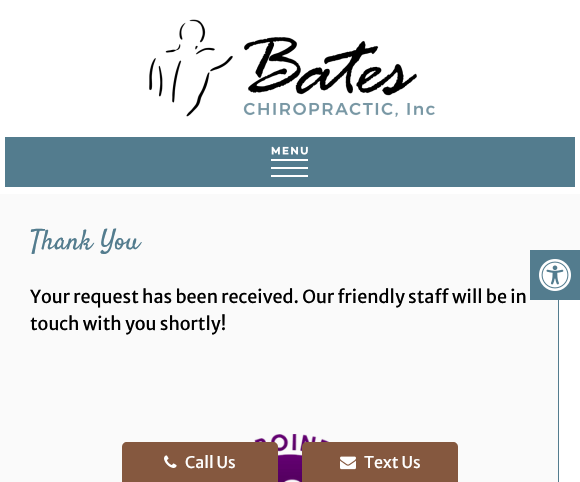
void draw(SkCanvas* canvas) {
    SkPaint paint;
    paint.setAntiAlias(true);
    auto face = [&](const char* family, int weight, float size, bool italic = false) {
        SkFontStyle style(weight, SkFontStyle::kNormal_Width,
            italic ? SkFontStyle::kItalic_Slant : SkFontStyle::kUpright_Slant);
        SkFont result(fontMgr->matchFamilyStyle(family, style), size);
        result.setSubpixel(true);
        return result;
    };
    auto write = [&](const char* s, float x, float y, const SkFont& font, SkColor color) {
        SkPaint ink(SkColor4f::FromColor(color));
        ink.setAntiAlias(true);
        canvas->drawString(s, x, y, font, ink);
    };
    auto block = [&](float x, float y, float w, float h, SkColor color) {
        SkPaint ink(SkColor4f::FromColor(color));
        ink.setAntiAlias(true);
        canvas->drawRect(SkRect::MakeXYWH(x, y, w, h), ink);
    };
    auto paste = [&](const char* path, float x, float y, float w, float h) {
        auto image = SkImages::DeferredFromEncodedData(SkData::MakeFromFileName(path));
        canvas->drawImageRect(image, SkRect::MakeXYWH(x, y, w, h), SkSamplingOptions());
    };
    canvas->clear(SkColorSetRGB(250, 250, 250));
    block(0, 0, 580, 194, SK_ColorWHITE);
    paste("pic1.png", 149, 19, 286, 98);
    block(5, 137, 570, 50, SkColorSetRGB(83, 124, 142));
    paste("pic2.png", 271, 146, 37, 31);
    auto kFont1 = face("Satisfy", 400, 28);
    write("Thank You", 30, 249, kFont1, SkColorSetRGB(83, 124, 142));
    auto kFont2 = face("Merriweather Sans", 400, 18);
    write("Your request has been received. Our friendly staff will be in", 30, 303, kFont2, SK_ColorBLACK);
    write("touch with you shortly!", 30, 330, kFont2, SK_ColorBLACK);
    paste("pic3.png", 254, 434, 75, 48);
    block(559, 300, 21, 182, SK_ColorWHITE);
    paint.setStyle(SkPaint::kStroke_Style);
    paint.setStrokeWidth(1);
    paint.setColor(SkColorSetRGB(83, 124, 142));
    canvas->drawRect(SkRect::MakeXYWH(558.5f, 250.5f, 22, 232), paint);
    block(530, 250, 50, 50, SkColorSetRGB(83, 124, 142));
    paste("pic4.png", 539, 259, 32, 32);
    paint.setStyle(SkPaint::kFill_Style);
    paint.setColor(SkColorSetRGB(133, 88, 63));
    canvas->drawPath(SkPathBuilder().moveTo(127, 442).lineTo(273, 442).cubicTo(276, 442, 278, 444, 278, 447).lineTo(278, 482).lineTo(122, 482).lineTo(122, 447).cubicTo(122, 444, 124, 442, 127, 442).close().detach(), paint);
    paste("pic5.png", 164, 455, 13, 13);
    auto kFont3 = face("Merriweather Sans", 400, 16);
    write("Call Us", 185, 468, kFont3, SK_ColorWHITE);
    canvas->drawPath(SkPathBuilder().moveTo(307, 442).lineTo(453, 442).cubicTo(456, 442, 458, 444, 458, 447).lineTo(458, 482).lineTo(302, 482).lineTo(302, 447).cubicTo(302, 444, 304, 442, 307, 442).close().detach(), paint);
    paste("pic6.png", 340, 456, 16, 14);
    write("Text Us", 364, 468, kFont3, SK_ColorWHITE);
}
